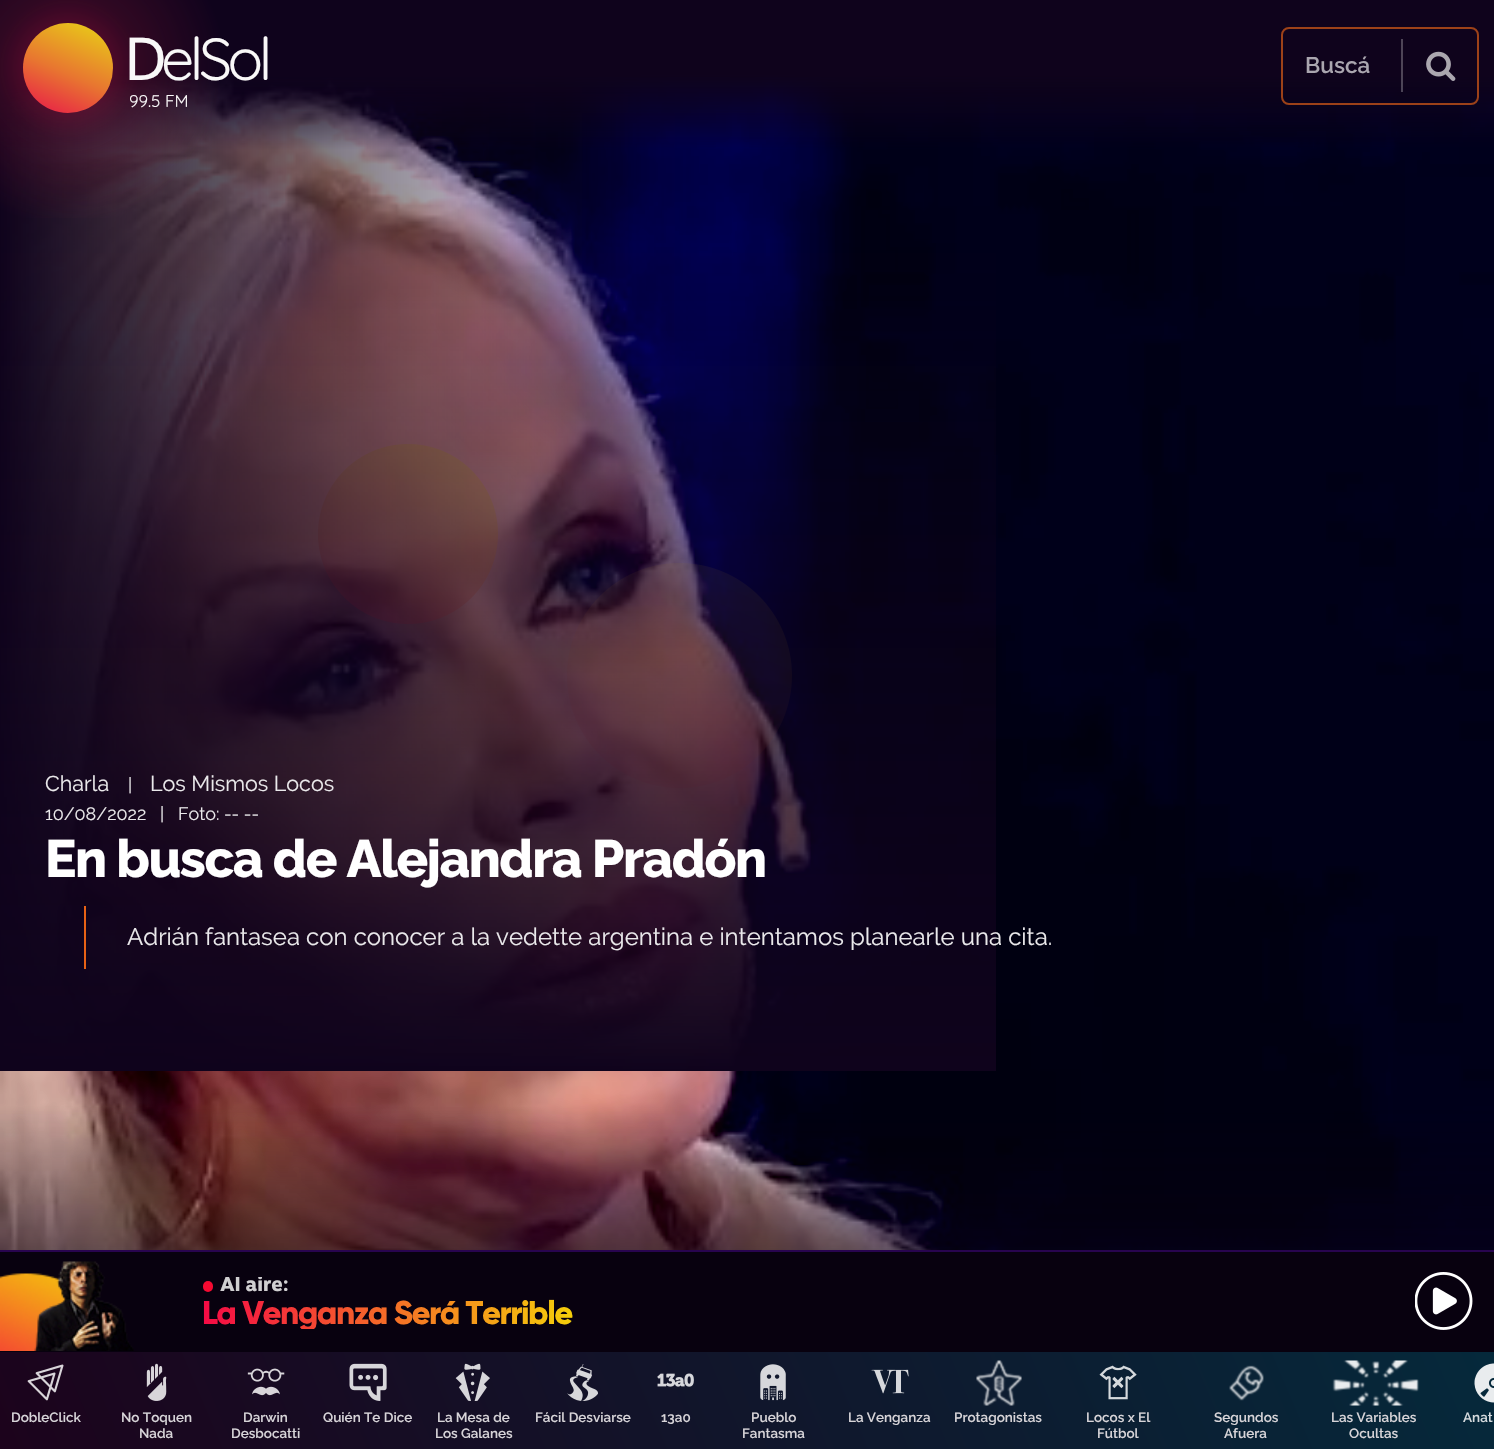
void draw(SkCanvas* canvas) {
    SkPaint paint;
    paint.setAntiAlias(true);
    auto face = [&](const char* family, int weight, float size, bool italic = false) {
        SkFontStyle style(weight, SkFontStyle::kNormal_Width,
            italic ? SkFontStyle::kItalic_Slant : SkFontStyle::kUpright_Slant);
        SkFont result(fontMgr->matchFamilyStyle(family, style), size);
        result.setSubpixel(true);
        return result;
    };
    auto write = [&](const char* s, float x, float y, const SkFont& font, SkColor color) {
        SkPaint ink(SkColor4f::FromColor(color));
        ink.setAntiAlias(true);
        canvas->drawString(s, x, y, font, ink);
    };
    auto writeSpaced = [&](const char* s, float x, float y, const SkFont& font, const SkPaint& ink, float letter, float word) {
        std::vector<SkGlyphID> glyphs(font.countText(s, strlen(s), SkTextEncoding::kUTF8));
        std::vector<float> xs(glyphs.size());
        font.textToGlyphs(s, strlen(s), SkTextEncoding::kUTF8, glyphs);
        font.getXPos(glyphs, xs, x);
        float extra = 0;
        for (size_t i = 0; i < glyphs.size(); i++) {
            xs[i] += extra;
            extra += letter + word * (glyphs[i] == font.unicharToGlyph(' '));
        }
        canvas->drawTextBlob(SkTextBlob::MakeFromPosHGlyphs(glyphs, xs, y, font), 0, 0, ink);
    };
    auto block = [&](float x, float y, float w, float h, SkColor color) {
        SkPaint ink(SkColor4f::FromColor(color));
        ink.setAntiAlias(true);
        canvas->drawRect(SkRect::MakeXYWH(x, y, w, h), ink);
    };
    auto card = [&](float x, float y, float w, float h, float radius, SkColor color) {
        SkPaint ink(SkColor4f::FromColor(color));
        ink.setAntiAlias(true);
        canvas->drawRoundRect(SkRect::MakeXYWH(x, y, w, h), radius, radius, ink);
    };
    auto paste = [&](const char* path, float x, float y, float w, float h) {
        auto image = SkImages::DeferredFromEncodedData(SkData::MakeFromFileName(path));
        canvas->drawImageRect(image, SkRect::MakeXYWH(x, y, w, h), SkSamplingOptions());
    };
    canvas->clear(SK_ColorWHITE);
    block(0, 0, 1494, 75, SkColorSetRGB(15, 3, 28));
    paste("pic2.png", 0, 75, 1494, 1175);
    {
        const SkColor colors[] = {SkColorSetARGB(143, 232, 21, 74), SkColorSetARGB(79, 122, 17, 47), SkColorSetARGB(0, 122, 17, 47)};
        const float stops[] = {0, 0.45f, 1};
        paint.setShader(SkGradientShader::MakeRadial({68, 68}, 158, colors, stops, 3, SkTileMode::kClamp));
        paint.setAlpha(255);
    }
    canvas->drawRect(SkRect::MakeXYWH(0, 0, 220, 218), paint);
    {
        const SkColor colors[] = {SkColorSetRGB(232, 21, 74), SkColorSetRGB(232, 118, 48), SkColorSetRGB(232, 214, 21)};
        const float stops[] = {0, 0.45f, 1};
        const SkPoint ends[] = {{44, 122}, {91, 13}};
        paint.setShader(SkGradientShader::MakeLinear(ends, colors, stops, 3, SkTileMode::kClamp));
        paint.setAlpha(255);
    }
    canvas->drawCircle(68, 68, 45, paint);
    auto kFont1 = face("Noto Sans", 400, 59);
    paint.setShader(nullptr);
    paint.setColor(SkColorSetRGB(249, 248, 248));
    writeSpaced("D", 124, 80, kFont1, paint, -4.5f, 0);
    auto kFont2 = face("Quicksand", 400, 59);
    writeSpaced("elSol", 161, 80, kFont2, paint, -4.5f, 0);
    auto kFont3 = face("Quicksand", 400, 17);
    write("99.5 FM", 129, 107, kFont3, SkColorSetRGB(249, 248, 248));
    paint.setStyle(SkPaint::kStroke_Style);
    paint.setStrokeWidth(2);
    paint.setColor(SkColorSetARGB(166, 232, 98, 21));
    canvas->drawRoundRect(SkRect::MakeXYWH(1282, 28, 196, 76), 7, 7, paint);
    auto kFont4 = face("Raleway", 600, 22.5f);
    write("Buscá", 1305, 73, kFont4, SkColorSetRGB(170, 166, 175));
    block(1401, 39, 2, 53, SkColorSetARGB(66, 255, 255, 255));
    paste("pic1.png", 1426, 51, 30, 30);
    auto kFont5 = face("Raleway", 400, 21.5f);
    write("Charla", 45, 791, kFont5, SkColorSetRGB(234, 233, 235));
    auto kFont6 = face("Raleway", 400, 18);
    write("|", 128, 791, kFont6, SkColorSetRGB(234, 233, 235));
    write("Los Mismos Locos", 150, 791, kFont5, SkColorSetRGB(234, 233, 235));
    write("10/08/2022   |   Foto: -- --", 45, 820, kFont6, SkColorSetRGB(234, 233, 235));
    auto kFont7 = face("Raleway", 800, 52.5f);
    paint.setStyle(SkPaint::kFill_Style);
    paint.setColor(SK_ColorWHITE);
    writeSpaced("En busca de Alejandra Pradón", 45, 877, kFont7, paint, -1.5f, 0);
    block(84, 906, 2, 63, SkColorSetRGB(232, 98, 21));
    auto kFont8 = face("Raleway", 400, 24);
    write("Adrián fantasea con conocer a la vedette argentina e intentamos planearle una cita.", 127, 945, kFont8, SkColorSetRGB(234, 233, 235));
    block(0, 1252, 1494, 100, SkColorSetRGB(8, 1, 15));
    block(0, 1250, 1494, 2, SkColorSetRGB(40, 4, 79));
    paste("pic3.png", 0, 1261, 134, 90);
    card(203, 1281, 10, 11, 5, SkColorSetRGB(245, 10, 49));
    canvas->save();
    canvas->clipRect(SkRect::MakeXYWH(203, 1277, 1189, 19));
    auto kFont9 = face("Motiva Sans", 800, 20);
    write("Al aire:", 220, 1291, kFont9, SkColorSetRGB(208, 207, 209));
    canvas->restore();
    canvas->save();
    canvas->clipRect(SkRect::MakeXYWH(203, 1296, 1189, 33));
    auto kFont10 = face("Gilroy", 800, 33);
    {
        const SkColor colors[] = {SkColorSetRGB(245, 10, 69), SkColorSetRGB(245, 206, 10)};
        const float stops[] = {0, 1};
        const SkPoint ends[] = {{202, 1313}, {572, 1313}};
        paint.setShader(SkGradientShader::MakeLinear(ends, colors, stops, 2, SkTileMode::kClamp));
        paint.setAlpha(255);
    }
    writeSpaced("La Venganza Será Terrible", 202, 1324, kFont10, paint, -1.5f, 0);
    canvas->restore();
    paste("pic4.png", 1415, 1272, 58, 58);
    {
        const SkColor colors[] = {SkColorSetRGB(28, 3, 28), SkColorSetRGB(5, 41, 59)};
        const float stops[] = {0, 1};
        const SkPoint ends[] = {{97, 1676}, {1397, 1124}};
        paint.setShader(SkGradientShader::MakeLinear(ends, colors, stops, 2, SkTileMode::kClamp));
        paint.setAlpha(255);
    }
    canvas->drawRect(SkRect::MakeXYWH(0, 1352, 1494, 97), paint);
    paste("pic5.png", 27, 1364, 37, 37);
    auto kFont11 = face("Raleway", 600, 13.5f);
    write("DobleClick", 11, 1422, kFont11, SkColorSetRGB(215, 212, 216));
    paste("pic6.png", 146, 1363, 21, 38);
    write("No Toquen", 121, 1422, kFont11, SkColorSetRGB(215, 212, 216));
    write("Nada", 139, 1438, kFont11, SkColorSetRGB(215, 212, 216));
    paste("pic7.png", 247, 1368, 38, 28);
    write("Darwin", 243, 1422, kFont11, SkColorSetRGB(215, 212, 216));
    write("Desbocatti", 231, 1438, kFont11, SkColorSetRGB(215, 212, 216));
    paste("pic8.png", 349, 1363, 38, 38);
    write("Quién Te Dice", 323, 1422, kFont11, SkColorSetRGB(215, 212, 216));
    paste("pic9.png", 455, 1363, 35, 38);
    write("La Mesa de", 437, 1422, kFont11, SkColorSetRGB(215, 212, 216));
    write("Los Galanes", 435, 1438, kFont11, SkColorSetRGB(215, 212, 216));
    paste("pic10.png", 567, 1364, 31, 37);
    write("Fácil Desviarse", 535, 1422, kFont11, SkColorSetRGB(215, 212, 216));
    paste("pic11.png", 657, 1373, 37, 14);
    write("13a0", 661, 1422, kFont11, SkColorSetRGB(215, 212, 216));
    paste("pic12.png", 760, 1364, 26, 37);
    write("Pueblo", 751, 1422, kFont11, SkColorSetRGB(215, 212, 216));
    write("Fantasma", 742, 1438, kFont11, SkColorSetRGB(215, 212, 216));
    paste("pic13.png", 871, 1369, 38, 25);
    write("La Venganza", 848, 1422, kFont11, SkColorSetRGB(215, 212, 216));
    paste("pic14.png", 976, 1360, 46, 46);
    write("Protagonistas", 954, 1422, kFont11, SkColorSetRGB(215, 212, 216));
    paste("pic15.png", 1099, 1365, 38, 35);
    write("Locos x El", 1086, 1422, kFont11, SkColorSetRGB(215, 212, 216));
    write("Fútbol", 1097, 1438, kFont11, SkColorSetRGB(215, 212, 216));
    paste("pic16.png", 1229, 1365, 35, 36);
    write("Segundos", 1214, 1422, kFont11, SkColorSetRGB(215, 212, 216));
    write("Afuera", 1224, 1438, kFont11, SkColorSetRGB(215, 212, 216));
    paste("pic17.png", 1332, 1360, 87, 46);
    write("Las Variables", 1331, 1422, kFont11, SkColorSetRGB(215, 212, 216));
    write("Ocultas", 1349, 1438, kFont11, SkColorSetRGB(215, 212, 216));
    paste("pic18.png", 1474, 1363, 20, 40);
    write("Anat", 1463, 1422, kFont11, SkColorSetRGB(213, 218, 221));
}
